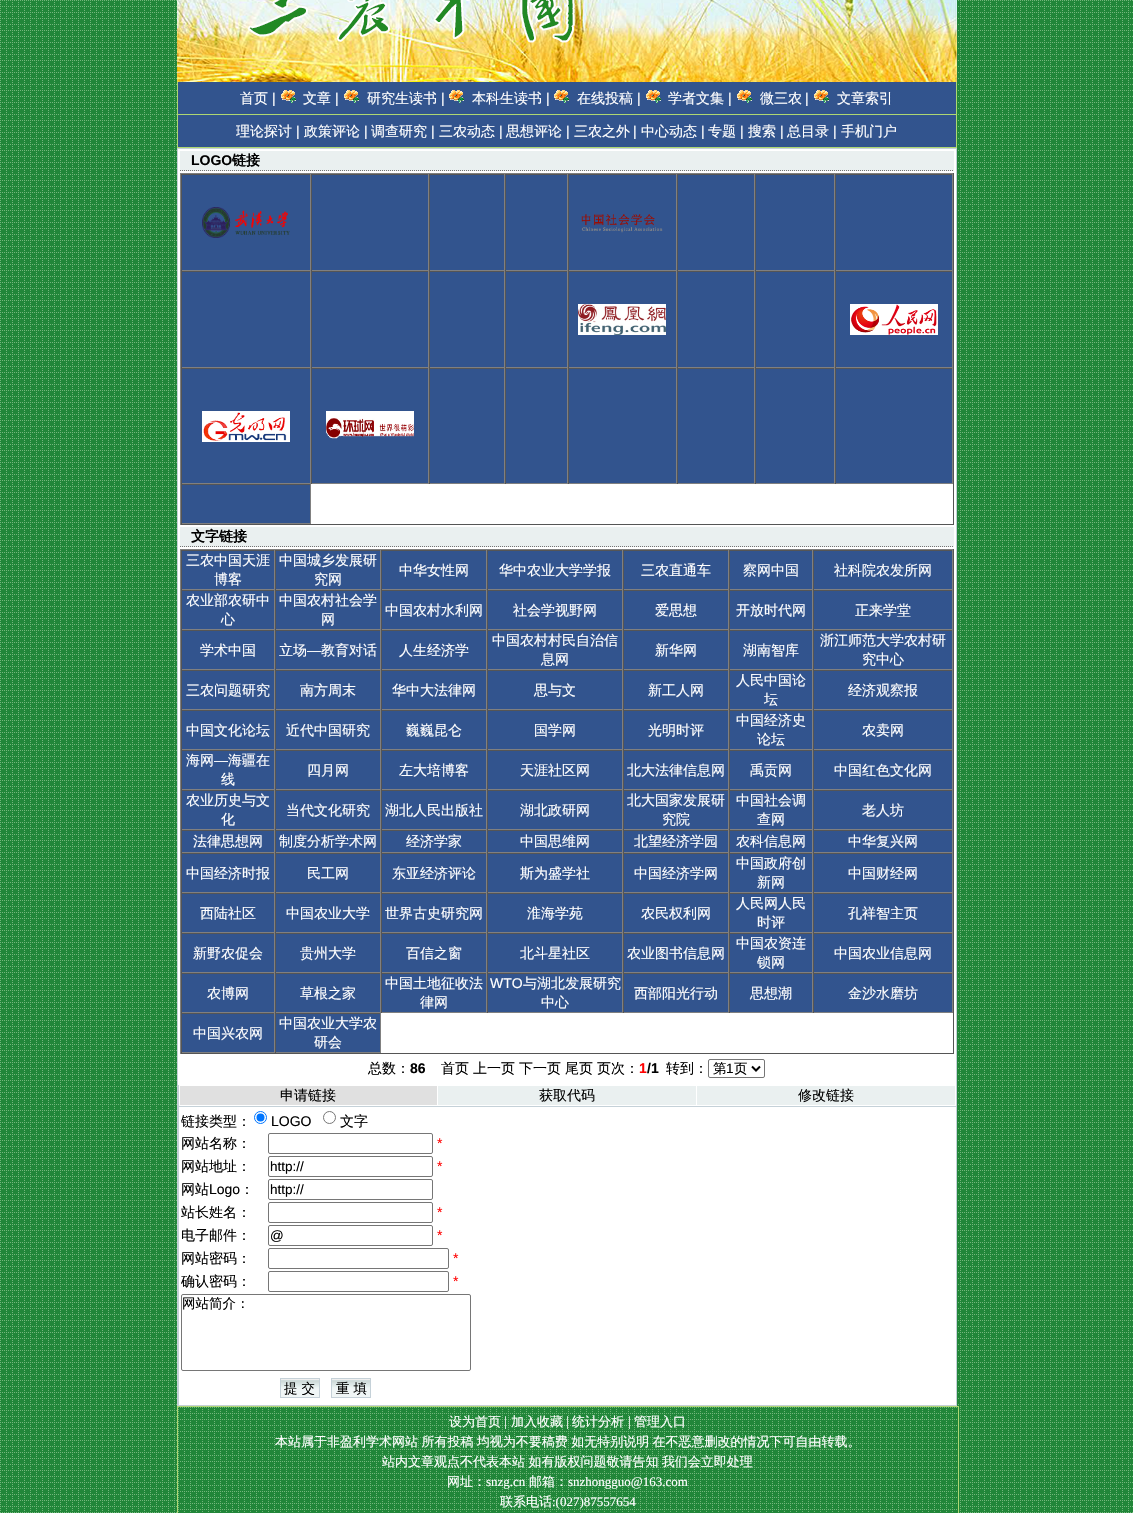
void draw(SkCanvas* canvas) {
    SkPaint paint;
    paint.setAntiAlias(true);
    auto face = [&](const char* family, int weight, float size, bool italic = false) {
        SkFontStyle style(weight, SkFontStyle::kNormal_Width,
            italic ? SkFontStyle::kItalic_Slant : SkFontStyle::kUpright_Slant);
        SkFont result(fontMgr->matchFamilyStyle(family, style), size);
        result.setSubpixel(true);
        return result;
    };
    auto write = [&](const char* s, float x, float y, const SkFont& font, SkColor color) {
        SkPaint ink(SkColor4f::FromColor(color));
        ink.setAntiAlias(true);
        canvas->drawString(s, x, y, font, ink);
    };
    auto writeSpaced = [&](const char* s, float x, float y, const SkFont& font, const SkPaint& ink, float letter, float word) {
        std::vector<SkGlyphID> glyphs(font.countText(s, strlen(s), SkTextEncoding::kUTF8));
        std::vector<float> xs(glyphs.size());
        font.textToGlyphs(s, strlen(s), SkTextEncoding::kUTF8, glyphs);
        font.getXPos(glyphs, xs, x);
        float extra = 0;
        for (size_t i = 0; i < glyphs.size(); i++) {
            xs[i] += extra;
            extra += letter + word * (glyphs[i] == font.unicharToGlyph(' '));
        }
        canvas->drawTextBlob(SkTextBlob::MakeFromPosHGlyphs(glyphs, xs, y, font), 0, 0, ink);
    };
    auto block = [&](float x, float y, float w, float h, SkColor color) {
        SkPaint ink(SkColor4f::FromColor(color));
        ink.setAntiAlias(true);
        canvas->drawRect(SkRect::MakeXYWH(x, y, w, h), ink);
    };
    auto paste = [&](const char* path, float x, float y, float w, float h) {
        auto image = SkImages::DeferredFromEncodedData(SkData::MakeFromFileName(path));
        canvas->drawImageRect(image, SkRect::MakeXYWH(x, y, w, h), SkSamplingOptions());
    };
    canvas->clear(SK_ColorWHITE);
    paste("pic1.png", 0, 0, 1133, 1513);
    paste("pic2.png", 177, 0, 780, 82);
    block(178, 82, 778, 32, SkColorSetRGB(50, 84, 142));
    block(956, 82, 1, 66, SkColorSetRGB(174, 215, 114));
    block(177, 114, 780, 1, SkColorSetRGB(174, 215, 114));
    block(177, 82, 1, 33, SkColorSetRGB(174, 215, 114));
    auto kFont1 = face("WenQuanYi Zen Hei", 500, 14);
    write("首页", 240, 103, kFont1, SK_ColorWHITE);
    auto kFont2 = face("Liberation Sans", 400, 14);
    write("|", 272, 103, kFont2, SK_ColorWHITE);
    paste("pic3.png", 281, 90, 15, 13);
    write("文章", 303, 103, kFont1, SK_ColorWHITE);
    write("|", 335, 103, kFont2, SK_ColorWHITE);
    paste("pic3.png", 344, 90, 15, 13);
    write("研究生读书", 367, 103, kFont1, SK_ColorWHITE);
    write("|", 441, 103, kFont2, SK_ColorWHITE);
    paste("pic3.png", 449, 90, 15, 13);
    write("本科生读书", 472, 103, kFont1, SK_ColorWHITE);
    write("|", 546, 103, kFont2, SK_ColorWHITE);
    paste("pic3.png", 554, 90, 15, 13);
    write("在线投稿", 577, 103, kFont1, SK_ColorWHITE);
    write("|", 637, 103, kFont2, SK_ColorWHITE);
    paste("pic3.png", 646, 90, 15, 13);
    write("学者文集", 668, 103, kFont1, SK_ColorWHITE);
    write("|", 728, 103, kFont2, SK_ColorWHITE);
    paste("pic3.png", 737, 90, 15, 13);
    write("微三农", 760, 103, kFont1, SK_ColorWHITE);
    write("|", 805, 103, kFont2, SK_ColorWHITE);
    paste("pic3.png", 814, 90, 15, 13);
    write("文章索引", 837, 103, kFont1, SK_ColorWHITE);
    block(178, 115, 778, 32, SkColorSetRGB(50, 84, 142));
    block(177, 147, 780, 1, SkColorSetRGB(174, 215, 114));
    block(177, 115, 1, 33, SkColorSetRGB(174, 215, 114));
    write("理论探讨", 236, 136, kFont1, SK_ColorWHITE);
    write("|", 296, 136, kFont2, SK_ColorWHITE);
    write("政策评论", 304, 136, kFont1, SK_ColorWHITE);
    write("|", 364, 136, kFont2, SK_ColorWHITE);
    write("调查研究", 371, 136, kFont1, SK_ColorWHITE);
    write("|", 431, 136, kFont2, SK_ColorWHITE);
    write("三农动态", 439, 136, kFont1, SK_ColorWHITE);
    write("|", 499, 136, kFont2, SK_ColorWHITE);
    write("思想评论", 506, 136, kFont1, SK_ColorWHITE);
    write("|", 566, 136, kFont2, SK_ColorWHITE);
    write("三农之外", 574, 136, kFont1, SK_ColorWHITE);
    write("|", 633, 136, kFont2, SK_ColorWHITE);
    write("中心动态", 641, 136, kFont1, SK_ColorWHITE);
    write("|", 701, 136, kFont2, SK_ColorWHITE);
    write("专题", 708, 136, kFont1, SK_ColorWHITE);
    write("|", 740, 136, kFont2, SK_ColorWHITE);
    write("搜索", 748, 136, kFont1, SK_ColorWHITE);
    write("|", 780, 136, kFont2, SK_ColorWHITE);
    write("总目录", 787, 136, kFont1, SK_ColorWHITE);
    write("|", 833, 136, kFont2, SK_ColorWHITE);
    write("手机门户", 841, 136, kFont1, SK_ColorWHITE);
    paint.setColor(SK_ColorWHITE);
    canvas->drawRect(SkRect::MakeXYWH(177.5f, 148.5f, 779, 1257), paint);
    paint.setStyle(SkPaint::kStroke_Style);
    paint.setStrokeWidth(1);
    paint.setColor(SkColorSetRGB(197, 209, 216));
    canvas->drawRect(SkRect::MakeXYWH(177.5f, 148.5f, 779, 1257), paint);
    block(180, 151, 774, 20, SkColorSetRGB(234, 240, 240));
    paint.setColor(SkColorSetRGB(116, 116, 116));
    paint.setPathEffect(SkDashPathEffect::Make({{1, 1}}, 0));
    canvas->drawPath(SkPathBuilder().moveTo(180, 170.5f).lineTo(954, 170.5f).detach(), paint);
    paint.setPathEffect(nullptr);
    auto kFont3 = face("Liberation Sans", 700, 14);
    write("LOGO", 191, 165, kFont3, SK_ColorBLACK);
    auto kFont4 = face("WenQuanYi Zen Hei", 700, 14);
    write("链接", 232, 165, kFont4, SK_ColorBLACK);
    block(180, 173, 774, 1, SkColorSetRGB(128, 128, 128));
    block(953, 173, 1, 352, SkColorSetRGB(85, 85, 85));
    block(180, 524, 774, 1, SkColorSetRGB(85, 85, 85));
    block(180, 173, 1, 352, SkColorSetRGB(128, 128, 128));
    block(182, 175, 128, 95, SkColorSetRGB(50, 84, 142));
    block(181, 174, 772, 1, SkColorSetRGB(85, 85, 85));
    block(310, 174, 1, 97, SkColorSetRGB(128, 128, 128));
    block(181, 270, 130, 1, SkColorSetRGB(128, 128, 128));
    block(181, 174, 1, 97, SkColorSetRGB(85, 85, 85));
    paste("pic4.png", 202, 207, 88, 31);
    block(312, 175, 116, 95, SkColorSetRGB(50, 84, 142));
    block(428, 174, 1, 97, SkColorSetRGB(128, 128, 128));
    block(311, 270, 118, 1, SkColorSetRGB(128, 128, 128));
    block(311, 174, 1, 97, SkColorSetRGB(85, 85, 85));
    block(430, 175, 74, 95, SkColorSetRGB(50, 84, 142));
    block(504, 174, 1, 97, SkColorSetRGB(128, 128, 128));
    block(429, 270, 76, 1, SkColorSetRGB(128, 128, 128));
    block(429, 174, 1, 97, SkColorSetRGB(85, 85, 85));
    block(506, 175, 61, 95, SkColorSetRGB(50, 84, 142));
    block(567, 174, 1, 97, SkColorSetRGB(128, 128, 128));
    block(505, 270, 63, 1, SkColorSetRGB(128, 128, 128));
    block(505, 174, 1, 97, SkColorSetRGB(85, 85, 85));
    block(569, 175, 107, 95, SkColorSetRGB(50, 84, 142));
    block(676, 174, 1, 97, SkColorSetRGB(128, 128, 128));
    block(568, 270, 109, 1, SkColorSetRGB(128, 128, 128));
    block(568, 174, 1, 97, SkColorSetRGB(85, 85, 85));
    paste("pic5.png", 581, 214, 82, 19);
    block(678, 175, 76, 95, SkColorSetRGB(50, 84, 142));
    block(754, 174, 1, 97, SkColorSetRGB(128, 128, 128));
    block(677, 270, 78, 1, SkColorSetRGB(128, 128, 128));
    block(677, 174, 1, 97, SkColorSetRGB(85, 85, 85));
    block(756, 175, 78, 95, SkColorSetRGB(50, 84, 142));
    block(834, 174, 1, 97, SkColorSetRGB(128, 128, 128));
    block(755, 270, 80, 1, SkColorSetRGB(128, 128, 128));
    block(755, 174, 1, 97, SkColorSetRGB(85, 85, 85));
    block(836, 175, 116, 95, SkColorSetRGB(50, 84, 142));
    block(952, 174, 1, 97, SkColorSetRGB(128, 128, 128));
    block(835, 270, 118, 1, SkColorSetRGB(128, 128, 128));
    block(835, 174, 1, 97, SkColorSetRGB(85, 85, 85));
    block(182, 272, 128, 95, SkColorSetRGB(50, 84, 142));
    block(181, 271, 772, 1, SkColorSetRGB(85, 85, 85));
    block(310, 271, 1, 97, SkColorSetRGB(128, 128, 128));
    block(181, 367, 130, 1, SkColorSetRGB(128, 128, 128));
    block(181, 271, 1, 97, SkColorSetRGB(85, 85, 85));
    block(312, 272, 116, 95, SkColorSetRGB(50, 84, 142));
    block(428, 271, 1, 97, SkColorSetRGB(128, 128, 128));
    block(311, 367, 118, 1, SkColorSetRGB(128, 128, 128));
    block(311, 271, 1, 97, SkColorSetRGB(85, 85, 85));
    block(430, 272, 74, 95, SkColorSetRGB(50, 84, 142));
    block(504, 271, 1, 97, SkColorSetRGB(128, 128, 128));
    block(429, 367, 76, 1, SkColorSetRGB(128, 128, 128));
    block(429, 271, 1, 97, SkColorSetRGB(85, 85, 85));
    block(506, 272, 61, 95, SkColorSetRGB(50, 84, 142));
    block(567, 271, 1, 97, SkColorSetRGB(128, 128, 128));
    block(505, 367, 63, 1, SkColorSetRGB(128, 128, 128));
    block(505, 271, 1, 97, SkColorSetRGB(85, 85, 85));
    block(569, 272, 107, 95, SkColorSetRGB(50, 84, 142));
    block(676, 271, 1, 97, SkColorSetRGB(128, 128, 128));
    block(568, 367, 109, 1, SkColorSetRGB(128, 128, 128));
    block(568, 271, 1, 97, SkColorSetRGB(85, 85, 85));
    paste("pic6.png", 578, 304, 88, 31);
    block(678, 272, 76, 95, SkColorSetRGB(50, 84, 142));
    block(754, 271, 1, 97, SkColorSetRGB(128, 128, 128));
    block(677, 367, 78, 1, SkColorSetRGB(128, 128, 128));
    block(677, 271, 1, 97, SkColorSetRGB(85, 85, 85));
    block(756, 272, 78, 95, SkColorSetRGB(50, 84, 142));
    block(834, 271, 1, 97, SkColorSetRGB(128, 128, 128));
    block(755, 367, 80, 1, SkColorSetRGB(128, 128, 128));
    block(755, 271, 1, 97, SkColorSetRGB(85, 85, 85));
    block(836, 272, 116, 95, SkColorSetRGB(50, 84, 142));
    block(952, 271, 1, 97, SkColorSetRGB(128, 128, 128));
    block(835, 367, 118, 1, SkColorSetRGB(128, 128, 128));
    block(835, 271, 1, 97, SkColorSetRGB(85, 85, 85));
    paste("pic7.png", 850, 304, 88, 31);
    block(182, 369, 128, 114, SkColorSetRGB(50, 84, 142));
    block(181, 368, 772, 1, SkColorSetRGB(85, 85, 85));
    block(310, 368, 1, 116, SkColorSetRGB(128, 128, 128));
    block(181, 483, 130, 1, SkColorSetRGB(128, 128, 128));
    block(181, 368, 1, 116, SkColorSetRGB(85, 85, 85));
    paste("pic8.png", 202, 411, 88, 31);
    block(312, 369, 116, 114, SkColorSetRGB(50, 84, 142));
    block(428, 368, 1, 116, SkColorSetRGB(128, 128, 128));
    block(311, 483, 118, 1, SkColorSetRGB(128, 128, 128));
    block(311, 368, 1, 116, SkColorSetRGB(85, 85, 85));
    paste("pic9.png", 326, 411, 88, 28);
    block(430, 369, 74, 114, SkColorSetRGB(50, 84, 142));
    block(504, 368, 1, 116, SkColorSetRGB(128, 128, 128));
    block(429, 483, 76, 1, SkColorSetRGB(128, 128, 128));
    block(429, 368, 1, 116, SkColorSetRGB(85, 85, 85));
    block(506, 369, 61, 114, SkColorSetRGB(50, 84, 142));
    block(567, 368, 1, 116, SkColorSetRGB(128, 128, 128));
    block(505, 483, 63, 1, SkColorSetRGB(128, 128, 128));
    block(505, 368, 1, 116, SkColorSetRGB(85, 85, 85));
    block(569, 369, 107, 114, SkColorSetRGB(50, 84, 142));
    block(676, 368, 1, 116, SkColorSetRGB(128, 128, 128));
    block(568, 483, 109, 1, SkColorSetRGB(128, 128, 128));
    block(568, 368, 1, 116, SkColorSetRGB(85, 85, 85));
    block(678, 369, 76, 114, SkColorSetRGB(50, 84, 142));
    block(754, 368, 1, 116, SkColorSetRGB(128, 128, 128));
    block(677, 483, 78, 1, SkColorSetRGB(128, 128, 128));
    block(677, 368, 1, 116, SkColorSetRGB(85, 85, 85));
    block(756, 369, 78, 114, SkColorSetRGB(50, 84, 142));
    block(834, 368, 1, 116, SkColorSetRGB(128, 128, 128));
    block(755, 483, 80, 1, SkColorSetRGB(128, 128, 128));
    block(755, 368, 1, 116, SkColorSetRGB(85, 85, 85));
    block(836, 369, 116, 114, SkColorSetRGB(50, 84, 142));
    block(952, 368, 1, 116, SkColorSetRGB(128, 128, 128));
    block(835, 483, 118, 1, SkColorSetRGB(128, 128, 128));
    block(835, 368, 1, 116, SkColorSetRGB(85, 85, 85));
    block(182, 485, 128, 38, SkColorSetRGB(50, 84, 142));
    block(181, 484, 130, 1, SkColorSetRGB(85, 85, 85));
    block(310, 484, 1, 40, SkColorSetRGB(128, 128, 128));
    block(181, 523, 130, 1, SkColorSetRGB(128, 128, 128));
    block(181, 484, 1, 40, SkColorSetRGB(85, 85, 85));
    block(180, 527, 774, 20, SkColorSetRGB(234, 240, 240));
    paint.setPathEffect(SkDashPathEffect::Make({{1, 1}}, 0));
    canvas->drawPath(SkPathBuilder().moveTo(180, 546.5f).lineTo(954, 546.5f).detach(), paint);
    paint.setPathEffect(nullptr);
    write("文字链接", 191, 541, kFont4, SK_ColorBLACK);
    block(180, 549, 774, 1, SkColorSetRGB(128, 128, 128));
    block(953, 549, 1, 505, SkColorSetRGB(85, 85, 85));
    block(180, 1053, 774, 1, SkColorSetRGB(85, 85, 85));
    block(180, 549, 1, 505, SkColorSetRGB(128, 128, 128));
    block(182, 551, 92, 38, SkColorSetRGB(50, 84, 142));
    block(181, 550, 772, 1, SkColorSetRGB(85, 85, 85));
    block(274, 550, 1, 40, SkColorSetRGB(128, 128, 128));
    block(181, 589, 94, 1, SkColorSetRGB(128, 128, 128));
    block(181, 550, 1, 40, SkColorSetRGB(85, 85, 85));
    write("三农中国天涯", 186, 565, kFont1, SK_ColorWHITE);
    write("博客", 214, 584, kFont1, SK_ColorWHITE);
    block(276, 551, 104, 38, SkColorSetRGB(50, 84, 142));
    block(380, 550, 1, 40, SkColorSetRGB(128, 128, 128));
    block(275, 589, 106, 1, SkColorSetRGB(128, 128, 128));
    block(275, 550, 1, 40, SkColorSetRGB(85, 85, 85));
    write("中国城乡发展研", 279, 565, kFont1, SK_ColorWHITE);
    write("究网", 314, 584, kFont1, SK_ColorWHITE);
    block(382, 551, 104, 38, SkColorSetRGB(50, 84, 142));
    block(486, 550, 1, 40, SkColorSetRGB(128, 128, 128));
    block(381, 589, 106, 1, SkColorSetRGB(128, 128, 128));
    block(381, 550, 1, 40, SkColorSetRGB(85, 85, 85));
    write("中华女性网", 399, 575, kFont1, SK_ColorWHITE);
    block(488, 551, 134, 38, SkColorSetRGB(50, 84, 142));
    block(622, 550, 1, 40, SkColorSetRGB(128, 128, 128));
    block(487, 589, 136, 1, SkColorSetRGB(128, 128, 128));
    block(487, 550, 1, 40, SkColorSetRGB(85, 85, 85));
    write("华中农业大学学报", 499, 575, kFont1, SK_ColorWHITE);
    block(624, 551, 104, 38, SkColorSetRGB(50, 84, 142));
    block(728, 550, 1, 40, SkColorSetRGB(128, 128, 128));
    block(623, 589, 106, 1, SkColorSetRGB(128, 128, 128));
    block(623, 550, 1, 40, SkColorSetRGB(85, 85, 85));
    write("三农直通车", 641, 575, kFont1, SK_ColorWHITE);
    block(730, 551, 82, 38, SkColorSetRGB(50, 84, 142));
    block(812, 550, 1, 40, SkColorSetRGB(128, 128, 128));
    block(729, 589, 84, 1, SkColorSetRGB(128, 128, 128));
    block(729, 550, 1, 40, SkColorSetRGB(85, 85, 85));
    write("察网中国", 743, 575, kFont1, SK_ColorWHITE);
    block(814, 551, 138, 38, SkColorSetRGB(50, 84, 142));
    block(952, 550, 1, 40, SkColorSetRGB(128, 128, 128));
    block(813, 589, 140, 1, SkColorSetRGB(128, 128, 128));
    block(813, 550, 1, 40, SkColorSetRGB(85, 85, 85));
    write("社科院农发所网", 834, 575, kFont1, SK_ColorWHITE);
    block(182, 591, 92, 38, SkColorSetRGB(50, 84, 142));
    block(181, 590, 772, 1, SkColorSetRGB(85, 85, 85));
    block(274, 590, 1, 40, SkColorSetRGB(128, 128, 128));
    block(181, 629, 94, 1, SkColorSetRGB(128, 128, 128));
    block(181, 590, 1, 40, SkColorSetRGB(85, 85, 85));
    write("农业部农研中", 186, 605, kFont1, SK_ColorWHITE);
    write("心", 221, 624, kFont1, SK_ColorWHITE);
    block(276, 591, 104, 38, SkColorSetRGB(50, 84, 142));
    block(380, 590, 1, 40, SkColorSetRGB(128, 128, 128));
    block(275, 629, 106, 1, SkColorSetRGB(128, 128, 128));
    block(275, 590, 1, 40, SkColorSetRGB(85, 85, 85));
    write("中国农村社会学", 279, 605, kFont1, SK_ColorWHITE);
    write("网", 321, 624, kFont1, SK_ColorWHITE);
    block(382, 591, 104, 38, SkColorSetRGB(50, 84, 142));
    block(486, 590, 1, 40, SkColorSetRGB(128, 128, 128));
    block(381, 629, 106, 1, SkColorSetRGB(128, 128, 128));
    block(381, 590, 1, 40, SkColorSetRGB(85, 85, 85));
    write("中国农村水利网", 385, 615, kFont1, SK_ColorWHITE);
    block(488, 591, 134, 38, SkColorSetRGB(50, 84, 142));
    block(622, 590, 1, 40, SkColorSetRGB(128, 128, 128));
    block(487, 629, 136, 1, SkColorSetRGB(128, 128, 128));
    block(487, 590, 1, 40, SkColorSetRGB(85, 85, 85));
    write("社会学视野网", 513, 615, kFont1, SK_ColorWHITE);
    block(624, 591, 104, 38, SkColorSetRGB(50, 84, 142));
    block(728, 590, 1, 40, SkColorSetRGB(128, 128, 128));
    block(623, 629, 106, 1, SkColorSetRGB(128, 128, 128));
    block(623, 590, 1, 40, SkColorSetRGB(85, 85, 85));
    write("爱思想", 655, 615, kFont1, SK_ColorWHITE);
    block(730, 591, 82, 38, SkColorSetRGB(50, 84, 142));
    block(812, 590, 1, 40, SkColorSetRGB(128, 128, 128));
    block(729, 629, 84, 1, SkColorSetRGB(128, 128, 128));
    block(729, 590, 1, 40, SkColorSetRGB(85, 85, 85));
    write("开放时代网", 736, 615, kFont1, SK_ColorWHITE);
    block(814, 591, 138, 38, SkColorSetRGB(50, 84, 142));
    block(952, 590, 1, 40, SkColorSetRGB(128, 128, 128));
    block(813, 629, 140, 1, SkColorSetRGB(128, 128, 128));
    block(813, 590, 1, 40, SkColorSetRGB(85, 85, 85));
    write("正来学堂", 855, 615, kFont1, SK_ColorWHITE);
    block(182, 631, 92, 38, SkColorSetRGB(50, 84, 142));
    block(181, 630, 772, 1, SkColorSetRGB(85, 85, 85));
    block(274, 630, 1, 40, SkColorSetRGB(128, 128, 128));
    block(181, 669, 94, 1, SkColorSetRGB(128, 128, 128));
    block(181, 630, 1, 40, SkColorSetRGB(85, 85, 85));
    write("学术中国", 200, 655, kFont1, SK_ColorWHITE);
    block(276, 631, 104, 38, SkColorSetRGB(50, 84, 142));
    block(380, 630, 1, 40, SkColorSetRGB(128, 128, 128));
    block(275, 669, 106, 1, SkColorSetRGB(128, 128, 128));
    block(275, 630, 1, 40, SkColorSetRGB(85, 85, 85));
    write("立场", 279, 655, kFont1, SK_ColorWHITE);
    write("—", 307, 655, kFont2, SK_ColorWHITE);
    write("教育对话", 321, 655, kFont1, SK_ColorWHITE);
    block(382, 631, 104, 38, SkColorSetRGB(50, 84, 142));
    block(486, 630, 1, 40, SkColorSetRGB(128, 128, 128));
    block(381, 669, 106, 1, SkColorSetRGB(128, 128, 128));
    block(381, 630, 1, 40, SkColorSetRGB(85, 85, 85));
    write("人生经济学", 399, 655, kFont1, SK_ColorWHITE);
    block(488, 631, 134, 38, SkColorSetRGB(50, 84, 142));
    block(622, 630, 1, 40, SkColorSetRGB(128, 128, 128));
    block(487, 669, 136, 1, SkColorSetRGB(128, 128, 128));
    block(487, 630, 1, 40, SkColorSetRGB(85, 85, 85));
    write("中国农村村民自治信", 492, 645, kFont1, SK_ColorWHITE);
    write("息网", 541, 664, kFont1, SK_ColorWHITE);
    block(624, 631, 104, 38, SkColorSetRGB(50, 84, 142));
    block(728, 630, 1, 40, SkColorSetRGB(128, 128, 128));
    block(623, 669, 106, 1, SkColorSetRGB(128, 128, 128));
    block(623, 630, 1, 40, SkColorSetRGB(85, 85, 85));
    write("新华网", 655, 655, kFont1, SK_ColorWHITE);
    block(730, 631, 82, 38, SkColorSetRGB(50, 84, 142));
    block(812, 630, 1, 40, SkColorSetRGB(128, 128, 128));
    block(729, 669, 84, 1, SkColorSetRGB(128, 128, 128));
    block(729, 630, 1, 40, SkColorSetRGB(85, 85, 85));
    write("湖南智库", 743, 655, kFont1, SK_ColorWHITE);
    block(814, 631, 138, 38, SkColorSetRGB(50, 84, 142));
    block(952, 630, 1, 40, SkColorSetRGB(128, 128, 128));
    block(813, 669, 140, 1, SkColorSetRGB(128, 128, 128));
    block(813, 630, 1, 40, SkColorSetRGB(85, 85, 85));
    write("浙江师范大学农村研", 820, 645, kFont1, SK_ColorWHITE);
    write("究中心", 862, 664, kFont1, SK_ColorWHITE);
    block(182, 671, 92, 38, SkColorSetRGB(50, 84, 142));
    block(181, 670, 772, 1, SkColorSetRGB(85, 85, 85));
    block(274, 670, 1, 40, SkColorSetRGB(128, 128, 128));
    block(181, 709, 94, 1, SkColorSetRGB(128, 128, 128));
    block(181, 670, 1, 40, SkColorSetRGB(85, 85, 85));
    write("三农问题研究", 186, 695, kFont1, SK_ColorWHITE);
    block(276, 671, 104, 38, SkColorSetRGB(50, 84, 142));
    block(380, 670, 1, 40, SkColorSetRGB(128, 128, 128));
    block(275, 709, 106, 1, SkColorSetRGB(128, 128, 128));
    block(275, 670, 1, 40, SkColorSetRGB(85, 85, 85));
    write("南方周末", 300, 695, kFont1, SK_ColorWHITE);
    block(382, 671, 104, 38, SkColorSetRGB(50, 84, 142));
    block(486, 670, 1, 40, SkColorSetRGB(128, 128, 128));
    block(381, 709, 106, 1, SkColorSetRGB(128, 128, 128));
    block(381, 670, 1, 40, SkColorSetRGB(85, 85, 85));
    write("华中大法律网", 392, 695, kFont1, SK_ColorWHITE);
    block(488, 671, 134, 38, SkColorSetRGB(50, 84, 142));
    block(622, 670, 1, 40, SkColorSetRGB(128, 128, 128));
    block(487, 709, 136, 1, SkColorSetRGB(128, 128, 128));
    block(487, 670, 1, 40, SkColorSetRGB(85, 85, 85));
    write("思与文", 534, 695, kFont1, SK_ColorWHITE);
    block(624, 671, 104, 38, SkColorSetRGB(50, 84, 142));
    block(728, 670, 1, 40, SkColorSetRGB(128, 128, 128));
    block(623, 709, 106, 1, SkColorSetRGB(128, 128, 128));
    block(623, 670, 1, 40, SkColorSetRGB(85, 85, 85));
    write("新工人网", 648, 695, kFont1, SK_ColorWHITE);
    block(730, 671, 82, 38, SkColorSetRGB(50, 84, 142));
    block(812, 670, 1, 40, SkColorSetRGB(128, 128, 128));
    block(729, 709, 84, 1, SkColorSetRGB(128, 128, 128));
    block(729, 670, 1, 40, SkColorSetRGB(85, 85, 85));
    write("人民中国论", 736, 685, kFont1, SK_ColorWHITE);
    write("坛", 764, 704, kFont1, SK_ColorWHITE);
    block(814, 671, 138, 38, SkColorSetRGB(50, 84, 142));
    block(952, 670, 1, 40, SkColorSetRGB(128, 128, 128));
    block(813, 709, 140, 1, SkColorSetRGB(128, 128, 128));
    block(813, 670, 1, 40, SkColorSetRGB(85, 85, 85));
    write("经济观察报", 848, 695, kFont1, SK_ColorWHITE);
    block(182, 711, 92, 38, SkColorSetRGB(50, 84, 142));
    block(181, 710, 772, 1, SkColorSetRGB(85, 85, 85));
    block(274, 710, 1, 40, SkColorSetRGB(128, 128, 128));
    block(181, 749, 94, 1, SkColorSetRGB(128, 128, 128));
    block(181, 710, 1, 40, SkColorSetRGB(85, 85, 85));
    write("中国文化论坛", 186, 735, kFont1, SK_ColorWHITE);
    block(276, 711, 104, 38, SkColorSetRGB(50, 84, 142));
    block(380, 710, 1, 40, SkColorSetRGB(128, 128, 128));
    block(275, 749, 106, 1, SkColorSetRGB(128, 128, 128));
    block(275, 710, 1, 40, SkColorSetRGB(85, 85, 85));
    write("近代中国研究", 286, 735, kFont1, SK_ColorWHITE);
    block(382, 711, 104, 38, SkColorSetRGB(50, 84, 142));
    block(486, 710, 1, 40, SkColorSetRGB(128, 128, 128));
    block(381, 749, 106, 1, SkColorSetRGB(128, 128, 128));
    block(381, 710, 1, 40, SkColorSetRGB(85, 85, 85));
    write("巍巍昆仑", 406, 735, kFont1, SK_ColorWHITE);
    block(488, 711, 134, 38, SkColorSetRGB(50, 84, 142));
    block(622, 710, 1, 40, SkColorSetRGB(128, 128, 128));
    block(487, 749, 136, 1, SkColorSetRGB(128, 128, 128));
    block(487, 710, 1, 40, SkColorSetRGB(85, 85, 85));
    write("国学网", 534, 735, kFont1, SK_ColorWHITE);
    block(624, 711, 104, 38, SkColorSetRGB(50, 84, 142));
    block(728, 710, 1, 40, SkColorSetRGB(128, 128, 128));
    block(623, 749, 106, 1, SkColorSetRGB(128, 128, 128));
    block(623, 710, 1, 40, SkColorSetRGB(85, 85, 85));
    write("光明时评", 648, 735, kFont1, SK_ColorWHITE);
    block(730, 711, 82, 38, SkColorSetRGB(50, 84, 142));
    block(812, 710, 1, 40, SkColorSetRGB(128, 128, 128));
    block(729, 749, 84, 1, SkColorSetRGB(128, 128, 128));
    block(729, 710, 1, 40, SkColorSetRGB(85, 85, 85));
    write("中国经济史", 736, 725, kFont1, SK_ColorWHITE);
    write("论坛", 757, 744, kFont1, SK_ColorWHITE);
    block(814, 711, 138, 38, SkColorSetRGB(50, 84, 142));
    block(952, 710, 1, 40, SkColorSetRGB(128, 128, 128));
    block(813, 749, 140, 1, SkColorSetRGB(128, 128, 128));
    block(813, 710, 1, 40, SkColorSetRGB(85, 85, 85));
    write("农卖网", 862, 735, kFont1, SK_ColorWHITE);
    block(182, 751, 92, 38, SkColorSetRGB(50, 84, 142));
    block(181, 750, 772, 1, SkColorSetRGB(85, 85, 85));
    block(274, 750, 1, 40, SkColorSetRGB(128, 128, 128));
    block(181, 789, 94, 1, SkColorSetRGB(128, 128, 128));
    block(181, 750, 1, 40, SkColorSetRGB(85, 85, 85));
    write("海网", 186, 765, kFont1, SK_ColorWHITE);
    write("—", 214, 765, kFont2, SK_ColorWHITE);
    write("海疆在", 228, 765, kFont1, SK_ColorWHITE);
    write("线", 221, 784, kFont1, SK_ColorWHITE);
    block(276, 751, 104, 38, SkColorSetRGB(50, 84, 142));
    block(380, 750, 1, 40, SkColorSetRGB(128, 128, 128));
    block(275, 789, 106, 1, SkColorSetRGB(128, 128, 128));
    block(275, 750, 1, 40, SkColorSetRGB(85, 85, 85));
    write("四月网", 307, 775, kFont1, SK_ColorWHITE);
    block(382, 751, 104, 38, SkColorSetRGB(50, 84, 142));
    block(486, 750, 1, 40, SkColorSetRGB(128, 128, 128));
    block(381, 789, 106, 1, SkColorSetRGB(128, 128, 128));
    block(381, 750, 1, 40, SkColorSetRGB(85, 85, 85));
    write("左大培博客", 399, 775, kFont1, SK_ColorWHITE);
    block(488, 751, 134, 38, SkColorSetRGB(50, 84, 142));
    block(622, 750, 1, 40, SkColorSetRGB(128, 128, 128));
    block(487, 789, 136, 1, SkColorSetRGB(128, 128, 128));
    block(487, 750, 1, 40, SkColorSetRGB(85, 85, 85));
    write("天涯社区网", 520, 775, kFont1, SK_ColorWHITE);
    block(624, 751, 104, 38, SkColorSetRGB(50, 84, 142));
    block(728, 750, 1, 40, SkColorSetRGB(128, 128, 128));
    block(623, 789, 106, 1, SkColorSetRGB(128, 128, 128));
    block(623, 750, 1, 40, SkColorSetRGB(85, 85, 85));
    write("北大法律信息网", 627, 775, kFont1, SK_ColorWHITE);
    block(730, 751, 82, 38, SkColorSetRGB(50, 84, 142));
    block(812, 750, 1, 40, SkColorSetRGB(128, 128, 128));
    block(729, 789, 84, 1, SkColorSetRGB(128, 128, 128));
    block(729, 750, 1, 40, SkColorSetRGB(85, 85, 85));
    write("禹贡网", 750, 775, kFont1, SK_ColorWHITE);
    block(814, 751, 138, 38, SkColorSetRGB(50, 84, 142));
    block(952, 750, 1, 40, SkColorSetRGB(128, 128, 128));
    block(813, 789, 140, 1, SkColorSetRGB(128, 128, 128));
    block(813, 750, 1, 40, SkColorSetRGB(85, 85, 85));
    write("中国红色文化网", 834, 775, kFont1, SK_ColorWHITE);
    block(182, 791, 92, 38, SkColorSetRGB(50, 84, 142));
    block(181, 790, 772, 1, SkColorSetRGB(85, 85, 85));
    block(274, 790, 1, 40, SkColorSetRGB(128, 128, 128));
    block(181, 829, 94, 1, SkColorSetRGB(128, 128, 128));
    block(181, 790, 1, 40, SkColorSetRGB(85, 85, 85));
    write("农业历史与文", 186, 805, kFont1, SK_ColorWHITE);
    write("化", 221, 824, kFont1, SK_ColorWHITE);
    block(276, 791, 104, 38, SkColorSetRGB(50, 84, 142));
    block(380, 790, 1, 40, SkColorSetRGB(128, 128, 128));
    block(275, 829, 106, 1, SkColorSetRGB(128, 128, 128));
    block(275, 790, 1, 40, SkColorSetRGB(85, 85, 85));
    write("当代文化研究", 286, 815, kFont1, SK_ColorWHITE);
    block(382, 791, 104, 38, SkColorSetRGB(50, 84, 142));
    block(486, 790, 1, 40, SkColorSetRGB(128, 128, 128));
    block(381, 829, 106, 1, SkColorSetRGB(128, 128, 128));
    block(381, 790, 1, 40, SkColorSetRGB(85, 85, 85));
    write("湖北人民出版社", 385, 815, kFont1, SK_ColorWHITE);
    block(488, 791, 134, 38, SkColorSetRGB(50, 84, 142));
    block(622, 790, 1, 40, SkColorSetRGB(128, 128, 128));
    block(487, 829, 136, 1, SkColorSetRGB(128, 128, 128));
    block(487, 790, 1, 40, SkColorSetRGB(85, 85, 85));
    write("湖北政研网", 520, 815, kFont1, SK_ColorWHITE);
    block(624, 791, 104, 38, SkColorSetRGB(50, 84, 142));
    block(728, 790, 1, 40, SkColorSetRGB(128, 128, 128));
    block(623, 829, 106, 1, SkColorSetRGB(128, 128, 128));
    block(623, 790, 1, 40, SkColorSetRGB(85, 85, 85));
    write("北大国家发展研", 627, 805, kFont1, SK_ColorWHITE);
    write("究院", 662, 824, kFont1, SK_ColorWHITE);
    block(730, 791, 82, 38, SkColorSetRGB(50, 84, 142));
    block(812, 790, 1, 40, SkColorSetRGB(128, 128, 128));
    block(729, 829, 84, 1, SkColorSetRGB(128, 128, 128));
    block(729, 790, 1, 40, SkColorSetRGB(85, 85, 85));
    write("中国社会调", 736, 805, kFont1, SK_ColorWHITE);
    write("查网", 757, 824, kFont1, SK_ColorWHITE);
    block(814, 791, 138, 38, SkColorSetRGB(50, 84, 142));
    block(952, 790, 1, 40, SkColorSetRGB(128, 128, 128));
    block(813, 829, 140, 1, SkColorSetRGB(128, 128, 128));
    block(813, 790, 1, 40, SkColorSetRGB(85, 85, 85));
    write("老人坊", 862, 815, kFont1, SK_ColorWHITE);
    block(182, 831, 92, 21, SkColorSetRGB(50, 84, 142));
    block(181, 830, 772, 1, SkColorSetRGB(85, 85, 85));
    block(274, 830, 1, 23, SkColorSetRGB(128, 128, 128));
    block(181, 852, 94, 1, SkColorSetRGB(128, 128, 128));
    block(181, 830, 1, 23, SkColorSetRGB(85, 85, 85));
    write("法律思想网", 193, 846, kFont1, SK_ColorWHITE);
    block(276, 831, 104, 21, SkColorSetRGB(50, 84, 142));
    block(380, 830, 1, 23, SkColorSetRGB(128, 128, 128));
    block(275, 852, 106, 1, SkColorSetRGB(128, 128, 128));
    block(275, 830, 1, 23, SkColorSetRGB(85, 85, 85));
    write("制度分析学术网", 279, 846, kFont1, SK_ColorWHITE);
    block(382, 831, 104, 21, SkColorSetRGB(50, 84, 142));
    block(486, 830, 1, 23, SkColorSetRGB(128, 128, 128));
    block(381, 852, 106, 1, SkColorSetRGB(128, 128, 128));
    block(381, 830, 1, 23, SkColorSetRGB(85, 85, 85));
    write("经济学家", 406, 846, kFont1, SK_ColorWHITE);
    block(488, 831, 134, 21, SkColorSetRGB(50, 84, 142));
    block(622, 830, 1, 23, SkColorSetRGB(128, 128, 128));
    block(487, 852, 136, 1, SkColorSetRGB(128, 128, 128));
    block(487, 830, 1, 23, SkColorSetRGB(85, 85, 85));
    write("中国思维网", 520, 846, kFont1, SK_ColorWHITE);
    block(624, 831, 104, 21, SkColorSetRGB(50, 84, 142));
    block(728, 830, 1, 23, SkColorSetRGB(128, 128, 128));
    block(623, 852, 106, 1, SkColorSetRGB(128, 128, 128));
    block(623, 830, 1, 23, SkColorSetRGB(85, 85, 85));
    write("北望经济学园", 634, 846, kFont1, SK_ColorWHITE);
    block(730, 831, 82, 21, SkColorSetRGB(50, 84, 142));
    block(812, 830, 1, 23, SkColorSetRGB(128, 128, 128));
    block(729, 852, 84, 1, SkColorSetRGB(128, 128, 128));
    block(729, 830, 1, 23, SkColorSetRGB(85, 85, 85));
    write("农科信息网", 736, 846, kFont1, SK_ColorWHITE);
    block(814, 831, 138, 21, SkColorSetRGB(50, 84, 142));
    block(952, 830, 1, 23, SkColorSetRGB(128, 128, 128));
    block(813, 852, 140, 1, SkColorSetRGB(128, 128, 128));
    block(813, 830, 1, 23, SkColorSetRGB(85, 85, 85));
    write("中华复兴网", 848, 846, kFont1, SK_ColorWHITE);
    block(182, 854, 92, 38, SkColorSetRGB(50, 84, 142));
    block(181, 853, 772, 1, SkColorSetRGB(85, 85, 85));
    block(274, 853, 1, 40, SkColorSetRGB(128, 128, 128));
    block(181, 892, 94, 1, SkColorSetRGB(128, 128, 128));
    block(181, 853, 1, 40, SkColorSetRGB(85, 85, 85));
    write("中国经济时报", 186, 878, kFont1, SK_ColorWHITE);
    block(276, 854, 104, 38, SkColorSetRGB(50, 84, 142));
    block(380, 853, 1, 40, SkColorSetRGB(128, 128, 128));
    block(275, 892, 106, 1, SkColorSetRGB(128, 128, 128));
    block(275, 853, 1, 40, SkColorSetRGB(85, 85, 85));
    write("民工网", 307, 878, kFont1, SK_ColorWHITE);
    block(382, 854, 104, 38, SkColorSetRGB(50, 84, 142));
    block(486, 853, 1, 40, SkColorSetRGB(128, 128, 128));
    block(381, 892, 106, 1, SkColorSetRGB(128, 128, 128));
    block(381, 853, 1, 40, SkColorSetRGB(85, 85, 85));
    write("东亚经济评论", 392, 878, kFont1, SK_ColorWHITE);
    block(488, 854, 134, 38, SkColorSetRGB(50, 84, 142));
    block(622, 853, 1, 40, SkColorSetRGB(128, 128, 128));
    block(487, 892, 136, 1, SkColorSetRGB(128, 128, 128));
    block(487, 853, 1, 40, SkColorSetRGB(85, 85, 85));
    write("斯为盛学社", 520, 878, kFont1, SK_ColorWHITE);
    block(624, 854, 104, 38, SkColorSetRGB(50, 84, 142));
    block(728, 853, 1, 40, SkColorSetRGB(128, 128, 128));
    block(623, 892, 106, 1, SkColorSetRGB(128, 128, 128));
    block(623, 853, 1, 40, SkColorSetRGB(85, 85, 85));
    write("中国经济学网", 634, 878, kFont1, SK_ColorWHITE);
    block(730, 854, 82, 38, SkColorSetRGB(50, 84, 142));
    block(812, 853, 1, 40, SkColorSetRGB(128, 128, 128));
    block(729, 892, 84, 1, SkColorSetRGB(128, 128, 128));
    block(729, 853, 1, 40, SkColorSetRGB(85, 85, 85));
    write("中国政府创", 736, 868, kFont1, SK_ColorWHITE);
    write("新网", 757, 887, kFont1, SK_ColorWHITE);
    block(814, 854, 138, 38, SkColorSetRGB(50, 84, 142));
    block(952, 853, 1, 40, SkColorSetRGB(128, 128, 128));
    block(813, 892, 140, 1, SkColorSetRGB(128, 128, 128));
    block(813, 853, 1, 40, SkColorSetRGB(85, 85, 85));
    write("中国财经网", 848, 878, kFont1, SK_ColorWHITE);
    block(182, 894, 92, 38, SkColorSetRGB(50, 84, 142));
    block(181, 893, 772, 1, SkColorSetRGB(85, 85, 85));
    block(274, 893, 1, 40, SkColorSetRGB(128, 128, 128));
    block(181, 932, 94, 1, SkColorSetRGB(128, 128, 128));
    block(181, 893, 1, 40, SkColorSetRGB(85, 85, 85));
    write("西陆社区", 200, 918, kFont1, SK_ColorWHITE);
    block(276, 894, 104, 38, SkColorSetRGB(50, 84, 142));
    block(380, 893, 1, 40, SkColorSetRGB(128, 128, 128));
    block(275, 932, 106, 1, SkColorSetRGB(128, 128, 128));
    block(275, 893, 1, 40, SkColorSetRGB(85, 85, 85));
    write("中国农业大学", 286, 918, kFont1, SK_ColorWHITE);
    block(382, 894, 104, 38, SkColorSetRGB(50, 84, 142));
    block(486, 893, 1, 40, SkColorSetRGB(128, 128, 128));
    block(381, 932, 106, 1, SkColorSetRGB(128, 128, 128));
    block(381, 893, 1, 40, SkColorSetRGB(85, 85, 85));
    write("世界古史研究网", 385, 918, kFont1, SK_ColorWHITE);
    block(488, 894, 134, 38, SkColorSetRGB(50, 84, 142));
    block(622, 893, 1, 40, SkColorSetRGB(128, 128, 128));
    block(487, 932, 136, 1, SkColorSetRGB(128, 128, 128));
    block(487, 893, 1, 40, SkColorSetRGB(85, 85, 85));
    write("淮海学苑", 527, 918, kFont1, SK_ColorWHITE);
    block(624, 894, 104, 38, SkColorSetRGB(50, 84, 142));
    block(728, 893, 1, 40, SkColorSetRGB(128, 128, 128));
    block(623, 932, 106, 1, SkColorSetRGB(128, 128, 128));
    block(623, 893, 1, 40, SkColorSetRGB(85, 85, 85));
    write("农民权利网", 641, 918, kFont1, SK_ColorWHITE);
    block(730, 894, 82, 38, SkColorSetRGB(50, 84, 142));
    block(812, 893, 1, 40, SkColorSetRGB(128, 128, 128));
    block(729, 932, 84, 1, SkColorSetRGB(128, 128, 128));
    block(729, 893, 1, 40, SkColorSetRGB(85, 85, 85));
    write("人民网人民", 736, 908, kFont1, SK_ColorWHITE);
    write("时评", 757, 927, kFont1, SK_ColorWHITE);
    block(814, 894, 138, 38, SkColorSetRGB(50, 84, 142));
    block(952, 893, 1, 40, SkColorSetRGB(128, 128, 128));
    block(813, 932, 140, 1, SkColorSetRGB(128, 128, 128));
    block(813, 893, 1, 40, SkColorSetRGB(85, 85, 85));
    write("孔祥智主页", 848, 918, kFont1, SK_ColorWHITE);
    block(182, 934, 92, 38, SkColorSetRGB(50, 84, 142));
    block(181, 933, 772, 1, SkColorSetRGB(85, 85, 85));
    block(274, 933, 1, 40, SkColorSetRGB(128, 128, 128));
    block(181, 972, 94, 1, SkColorSetRGB(128, 128, 128));
    block(181, 933, 1, 40, SkColorSetRGB(85, 85, 85));
    write("新野农促会", 193, 958, kFont1, SK_ColorWHITE);
    block(276, 934, 104, 38, SkColorSetRGB(50, 84, 142));
    block(380, 933, 1, 40, SkColorSetRGB(128, 128, 128));
    block(275, 972, 106, 1, SkColorSetRGB(128, 128, 128));
    block(275, 933, 1, 40, SkColorSetRGB(85, 85, 85));
    write("贵州大学", 300, 958, kFont1, SK_ColorWHITE);
    block(382, 934, 104, 38, SkColorSetRGB(50, 84, 142));
    block(486, 933, 1, 40, SkColorSetRGB(128, 128, 128));
    block(381, 972, 106, 1, SkColorSetRGB(128, 128, 128));
    block(381, 933, 1, 40, SkColorSetRGB(85, 85, 85));
    write("百信之窗", 406, 958, kFont1, SK_ColorWHITE);
    block(488, 934, 134, 38, SkColorSetRGB(50, 84, 142));
    block(622, 933, 1, 40, SkColorSetRGB(128, 128, 128));
    block(487, 972, 136, 1, SkColorSetRGB(128, 128, 128));
    block(487, 933, 1, 40, SkColorSetRGB(85, 85, 85));
    write("北斗星社区", 520, 958, kFont1, SK_ColorWHITE);
    block(624, 934, 104, 38, SkColorSetRGB(50, 84, 142));
    block(728, 933, 1, 40, SkColorSetRGB(128, 128, 128));
    block(623, 972, 106, 1, SkColorSetRGB(128, 128, 128));
    block(623, 933, 1, 40, SkColorSetRGB(85, 85, 85));
    write("农业图书信息网", 627, 958, kFont1, SK_ColorWHITE);
    block(730, 934, 82, 38, SkColorSetRGB(50, 84, 142));
    block(812, 933, 1, 40, SkColorSetRGB(128, 128, 128));
    block(729, 972, 84, 1, SkColorSetRGB(128, 128, 128));
    block(729, 933, 1, 40, SkColorSetRGB(85, 85, 85));
    write("中国农资连", 736, 948, kFont1, SK_ColorWHITE);
    write("锁网", 757, 967, kFont1, SK_ColorWHITE);
    block(814, 934, 138, 38, SkColorSetRGB(50, 84, 142));
    block(952, 933, 1, 40, SkColorSetRGB(128, 128, 128));
    block(813, 972, 140, 1, SkColorSetRGB(128, 128, 128));
    block(813, 933, 1, 40, SkColorSetRGB(85, 85, 85));
    write("中国农业信息网", 834, 958, kFont1, SK_ColorWHITE);
    block(182, 974, 92, 38, SkColorSetRGB(50, 84, 142));
    block(181, 973, 772, 1, SkColorSetRGB(85, 85, 85));
    block(274, 973, 1, 40, SkColorSetRGB(128, 128, 128));
    block(181, 1012, 94, 1, SkColorSetRGB(128, 128, 128));
    block(181, 973, 1, 40, SkColorSetRGB(85, 85, 85));
    write("农博网", 207, 998, kFont1, SK_ColorWHITE);
    block(276, 974, 104, 38, SkColorSetRGB(50, 84, 142));
    block(380, 973, 1, 40, SkColorSetRGB(128, 128, 128));
    block(275, 1012, 106, 1, SkColorSetRGB(128, 128, 128));
    block(275, 973, 1, 40, SkColorSetRGB(85, 85, 85));
    write("草根之家", 300, 998, kFont1, SK_ColorWHITE);
    block(382, 974, 104, 38, SkColorSetRGB(50, 84, 142));
    block(486, 973, 1, 40, SkColorSetRGB(128, 128, 128));
    block(381, 1012, 106, 1, SkColorSetRGB(128, 128, 128));
    block(381, 973, 1, 40, SkColorSetRGB(85, 85, 85));
    write("中国土地征收法", 385, 988, kFont1, SK_ColorWHITE);
    write("律网", 420, 1007, kFont1, SK_ColorWHITE);
    block(488, 974, 134, 38, SkColorSetRGB(50, 84, 142));
    block(622, 973, 1, 40, SkColorSetRGB(128, 128, 128));
    block(487, 1012, 136, 1, SkColorSetRGB(128, 128, 128));
    block(487, 973, 1, 40, SkColorSetRGB(85, 85, 85));
    write("WTO", 490, 988, kFont2, SK_ColorWHITE);
    write("与湖北发展研究", 523, 988, kFont1, SK_ColorWHITE);
    write("中心", 541, 1007, kFont1, SK_ColorWHITE);
    block(624, 974, 104, 38, SkColorSetRGB(50, 84, 142));
    block(728, 973, 1, 40, SkColorSetRGB(128, 128, 128));
    block(623, 1012, 106, 1, SkColorSetRGB(128, 128, 128));
    block(623, 973, 1, 40, SkColorSetRGB(85, 85, 85));
    write("西部阳光行动", 634, 998, kFont1, SK_ColorWHITE);
    block(730, 974, 82, 38, SkColorSetRGB(50, 84, 142));
    block(812, 973, 1, 40, SkColorSetRGB(128, 128, 128));
    block(729, 1012, 84, 1, SkColorSetRGB(128, 128, 128));
    block(729, 973, 1, 40, SkColorSetRGB(85, 85, 85));
    write("思想潮", 750, 998, kFont1, SK_ColorWHITE);
    block(814, 974, 138, 38, SkColorSetRGB(50, 84, 142));
    block(952, 973, 1, 40, SkColorSetRGB(128, 128, 128));
    block(813, 1012, 140, 1, SkColorSetRGB(128, 128, 128));
    block(813, 973, 1, 40, SkColorSetRGB(85, 85, 85));
    write("金沙水磨坊", 848, 998, kFont1, SK_ColorWHITE);
    block(182, 1014, 92, 38, SkColorSetRGB(50, 84, 142));
    block(181, 1013, 200, 1, SkColorSetRGB(85, 85, 85));
    block(274, 1013, 1, 40, SkColorSetRGB(128, 128, 128));
    block(181, 1052, 94, 1, SkColorSetRGB(128, 128, 128));
    block(181, 1013, 1, 40, SkColorSetRGB(85, 85, 85));
    write("中国兴农网", 193, 1038, kFont1, SK_ColorWHITE);
    block(276, 1014, 104, 38, SkColorSetRGB(50, 84, 142));
    block(380, 1013, 1, 40, SkColorSetRGB(128, 128, 128));
    block(275, 1052, 106, 1, SkColorSetRGB(128, 128, 128));
    block(275, 1013, 1, 40, SkColorSetRGB(85, 85, 85));
    write("中国农业大学农", 279, 1028, kFont1, SK_ColorWHITE);
    write("研会", 314, 1047, kFont1, SK_ColorWHITE);
    write("总数：", 368, 1073, kFont1, SK_ColorBLACK);
    write("86", 410, 1073, kFont3, SK_ColorBLACK);
    write("首页", 441, 1073, kFont1, SK_ColorBLACK);
    write("上一页", 473, 1073, kFont1, SK_ColorBLACK);
    write("下一页", 519, 1073, kFont1, SK_ColorBLACK);
    write("尾页", 565, 1073, kFont1, SK_ColorBLACK);
    write("页次：", 597, 1073, kFont1, SK_ColorBLACK);
    write("1", 639, 1073, kFont3, SkColorSetRGB(255, 0, 0));
    write("/1", 647, 1073, kFont3, SK_ColorBLACK);
    write("转到：", 666, 1073, kFont1, SK_ColorBLACK);
    paint.setColor(SkColorSetRGB(118, 118, 118));
    canvas->drawRoundRect(SkRect::MakeXYWH(708.5f, 1059.5f, 56, 18), 1.5f, 1.5f, paint);
    paint.setStrokeWidth(2);
    paint.setColor(SK_ColorBLACK);
    canvas->drawPath(SkPathBuilder().moveTo(752, 1066.5f).lineTo(756, 1070.5f).lineTo(760, 1066.5f).detach(), paint);
    auto kFont5 = face("WenQuanYi Zen Hei", 500, 13.5f);
    write("第", 713, 1073, kFont5, SK_ColorBLACK);
    auto kFont6 = face("Liberation Sans", 400, 13.5f);
    write("1", 726, 1073, kFont6, SK_ColorBLACK);
    write("页", 734, 1073, kFont5, SK_ColorBLACK);
    block(178, 1085, 1, 320, SkColorSetRGB(197, 209, 216));
    block(179, 1106, 777, 1, SkColorSetRGB(197, 209, 216));
    block(180, 1086, 257, 19, SkColorSetRGB(224, 224, 224));
    write("申请链接", 280, 1100, kFont1, SK_ColorBLACK);
    block(438, 1086, 258, 19, SkColorSetRGB(234, 240, 240));
    write("获取代码", 539, 1100, kFont1, SK_ColorBLACK);
    block(697, 1086, 258, 19, SkColorSetRGB(234, 240, 240));
    write("修改链接", 798, 1100, kFont1, SK_ColorBLACK);
    write("链接类型：", 181, 1126, kFont1, SK_ColorBLACK);
    paint.setStrokeWidth(1);
    paint.setColor(SkColorSetRGB(0, 117, 255));
    canvas->drawCircle(260.5f, 1117.5f, 6, paint);
    paint.setStyle(SkPaint::kFill_Style);
    canvas->drawCircle(260.5f, 1117.5f, 4, paint);
    write("LOGO", 271, 1126, kFont2, SK_ColorBLACK);
    paint.setStyle(SkPaint::kStroke_Style);
    paint.setColor(SkColorSetRGB(118, 118, 118));
    canvas->drawCircle(329.5f, 1117.5f, 6, paint);
    write("文字", 340, 1126, kFont1, SK_ColorBLACK);
    write("网站名称：", 181, 1148, kFont1, SK_ColorBLACK);
    canvas->drawRoundRect(SkRect::MakeXYWH(268.5f, 1133.5f, 164, 20), 1.5f, 1.5f, paint);
    write("*", 437, 1148, kFont2, SkColorSetRGB(255, 0, 0));
    write("网站地址：", 181, 1171, kFont1, SK_ColorBLACK);
    canvas->drawRoundRect(SkRect::MakeXYWH(268.5f, 1156.5f, 164, 20), 1.5f, 1.5f, paint);
    write("http://", 270, 1171, kFont6, SK_ColorBLACK);
    write("*", 437, 1171, kFont2, SkColorSetRGB(255, 0, 0));
    write("网站", 181, 1194, kFont1, SK_ColorBLACK);
    write("Logo", 209, 1194, kFont2, SK_ColorBLACK);
    write("：", 240, 1194, kFont1, SK_ColorBLACK);
    canvas->drawRoundRect(SkRect::MakeXYWH(268.5f, 1179.5f, 164, 20), 1.5f, 1.5f, paint);
    write("http://", 270, 1194, kFont6, SK_ColorBLACK);
    write("站长姓名：", 181, 1217, kFont1, SK_ColorBLACK);
    canvas->drawRoundRect(SkRect::MakeXYWH(268.5f, 1202.5f, 164, 20), 1.5f, 1.5f, paint);
    write("*", 437, 1217, kFont2, SkColorSetRGB(255, 0, 0));
    write("电子邮件：", 181, 1240, kFont1, SK_ColorBLACK);
    canvas->drawRoundRect(SkRect::MakeXYWH(268.5f, 1225.5f, 164, 20), 1.5f, 1.5f, paint);
    write("@", 270, 1240, kFont6, SK_ColorBLACK);
    write("*", 437, 1240, kFont2, SkColorSetRGB(255, 0, 0));
    write("网站密码：", 181, 1263, kFont1, SK_ColorBLACK);
    canvas->drawRoundRect(SkRect::MakeXYWH(268.5f, 1248.5f, 180, 20), 1.5f, 1.5f, paint);
    write("*", 453, 1263, kFont2, SkColorSetRGB(255, 0, 0));
    write("确认密码：", 181, 1286, kFont1, SK_ColorBLACK);
    canvas->drawRoundRect(SkRect::MakeXYWH(268.5f, 1271.5f, 180, 20), 1.5f, 1.5f, paint);
    write("*", 453, 1286, kFont2, SkColorSetRGB(255, 0, 0));
    canvas->drawRoundRect(SkRect::MakeXYWH(181.5f, 1294.5f, 289, 76), 1.5f, 1.5f, paint);
    write("网站简介：", 182, 1308, kFont5, SK_ColorBLACK);
    block(281, 1379, 38, 1, SkColorSetRGB(239, 239, 239));
    paste("pic10.png", 281, 1380, 38, 17);
    paint.setColor(SkColorSetRGB(197, 209, 216));
    canvas->drawRect(SkRect::MakeXYWH(280.5f, 1378.5f, 39, 19), paint);
    write("提 交", 284, 1393, kFont5, SK_ColorBLACK);
    block(332, 1379, 38, 1, SkColorSetRGB(239, 239, 239));
    paste("pic10.png", 332, 1380, 38, 17);
    canvas->drawRect(SkRect::MakeXYWH(331.5f, 1378.5f, 39, 19), paint);
    write("重 填", 336, 1393, kFont5, SK_ColorBLACK);
    paste("pic11.png", 178, 1407, 780, 106);
    paint.setColor(SkColorSetRGB(174, 215, 114));
    canvas->drawRect(SkRect::MakeXYWH(177.5f, 1406.5f, 781, 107), paint);
    auto kFont7 = face("WenQuanYi Zen Hei", 500, 13);
    write("设为首页", 449, 1426, kFont7, SK_ColorWHITE);
    auto kFont8 = face("Liberation Serif", 400, 14);
    write("|", 504, 1426, kFont8, SK_ColorWHITE);
    write("加入收藏", 511, 1426, kFont7, SK_ColorWHITE);
    write("|", 566, 1426, kFont8, SK_ColorWHITE);
    write("统计分析", 572, 1426, kFont7, SK_ColorWHITE);
    write("|", 628, 1426, kFont8, SK_ColorWHITE);
    write("管理入口", 634, 1426, kFont7, SK_ColorWHITE);
    paint.setStyle(SkPaint::kFill_Style);
    paint.setColor(SK_ColorWHITE);
    writeSpaced("本站属于非盈利学术网站 所有投稿 均视为不要稿费 如无特别说明 在不恶意删改的情况下可自由转载。", 275, 1446, kFont7, paint, 0, -0.5f);
    writeSpaced("站内文章观点不代表本站 如有版权问题敬请告知 我们会立即处理", 382, 1466, kFont7, paint, 0, -0.5f);
    write("网址：", 447, 1486, kFont7, SK_ColorWHITE);
    auto kFont9 = face("Liberation Serif", 400, 13);
    write("snzg.cn", 486, 1486, kFont9, SK_ColorWHITE);
    write("邮箱：", 529, 1486, kFont7, SK_ColorWHITE);
    write("snzhongguo@163.com", 568, 1486, kFont9, SK_ColorWHITE);
    write("联系电话", 500, 1506, kFont7, SK_ColorWHITE);
    write(":(027)87557654", 552, 1506, kFont9, SK_ColorWHITE);
}
